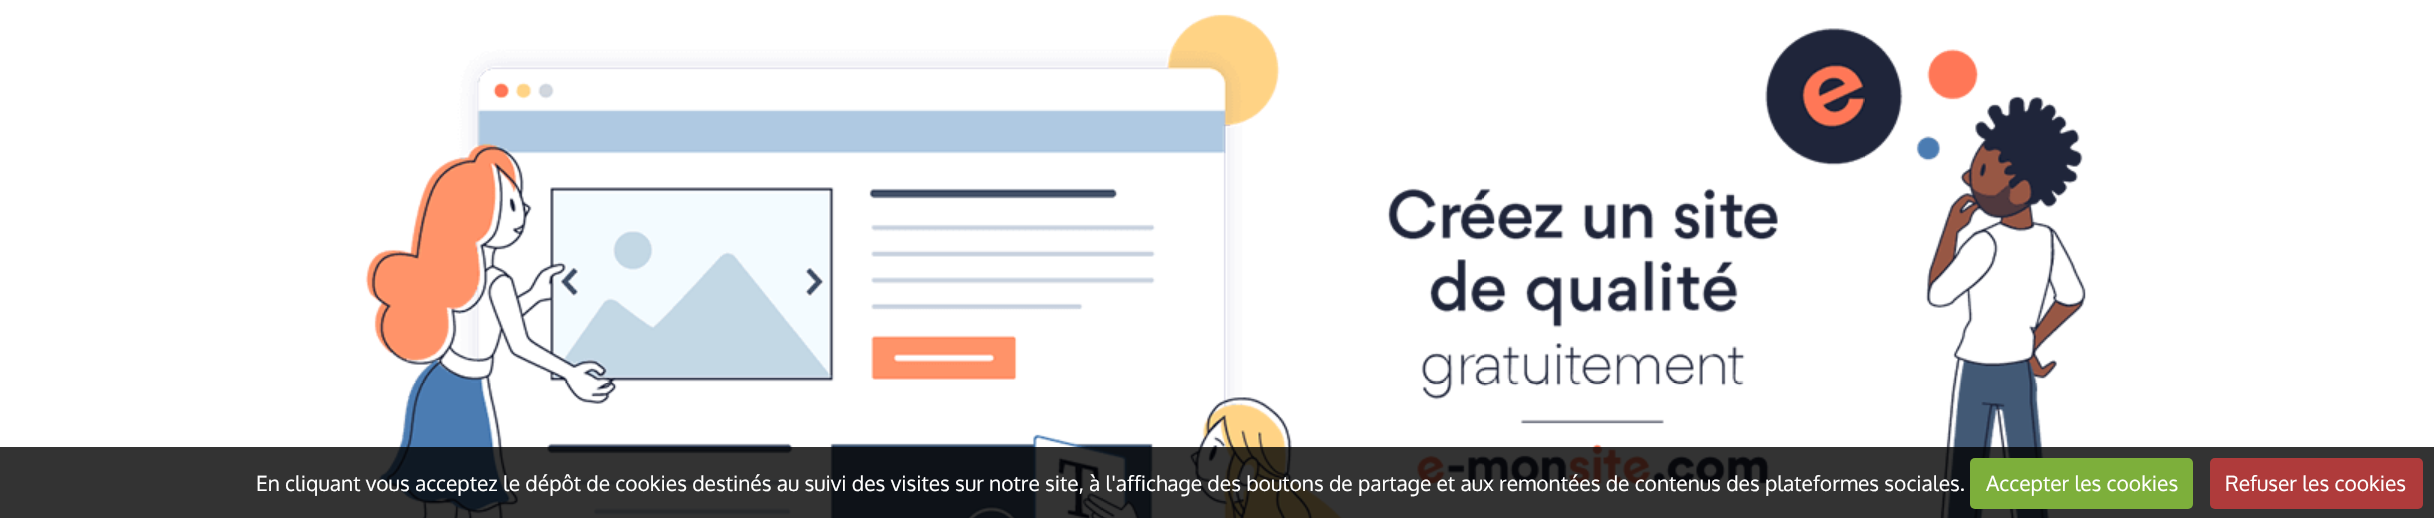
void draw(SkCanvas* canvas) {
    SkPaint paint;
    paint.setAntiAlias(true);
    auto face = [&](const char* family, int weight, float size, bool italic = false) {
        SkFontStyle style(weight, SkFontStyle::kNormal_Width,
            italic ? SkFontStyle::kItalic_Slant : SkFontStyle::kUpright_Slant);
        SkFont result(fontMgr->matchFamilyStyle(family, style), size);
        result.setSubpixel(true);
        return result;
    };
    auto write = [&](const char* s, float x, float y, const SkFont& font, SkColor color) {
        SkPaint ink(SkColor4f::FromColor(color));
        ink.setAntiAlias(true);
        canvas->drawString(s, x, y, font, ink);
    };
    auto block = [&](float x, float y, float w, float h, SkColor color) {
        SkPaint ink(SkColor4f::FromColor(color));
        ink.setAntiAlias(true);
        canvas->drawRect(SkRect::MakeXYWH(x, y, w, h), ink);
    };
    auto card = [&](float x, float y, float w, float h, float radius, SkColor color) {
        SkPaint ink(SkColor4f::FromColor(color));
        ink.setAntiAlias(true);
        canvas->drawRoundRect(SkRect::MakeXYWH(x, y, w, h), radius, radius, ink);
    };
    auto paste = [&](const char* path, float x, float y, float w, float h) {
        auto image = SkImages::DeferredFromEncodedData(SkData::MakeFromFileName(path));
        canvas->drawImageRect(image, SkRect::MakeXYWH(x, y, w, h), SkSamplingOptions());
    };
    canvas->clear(SK_ColorWHITE);
    paste("pic1.png", 365, 14, 1721, 504);
    block(0, 447, 2434, 71, SkColorSetARGB(204, 0, 0, 0));
    auto kFont1 = face("Oxygen", 400, 21);
    write("En cliquant vous acceptez le dépôt de cookies destinés au suivi des visites sur notre site, à l'affichage des boutons de partage et aux remontées de contenus des plateformes sociales.", 256, 491, kFont1, SK_ColorWHITE);
    card(1970, 458, 223, 51, 5, SkColorSetRGB(125, 175, 59));
    write("Accepter les cookies", 1986, 491, kFont1, SK_ColorWHITE);
    card(2210, 458, 213, 51, 5, SkColorSetRGB(175, 59, 59));
    write("Refuser les cookies", 2225, 491, kFont1, SK_ColorWHITE);
}
